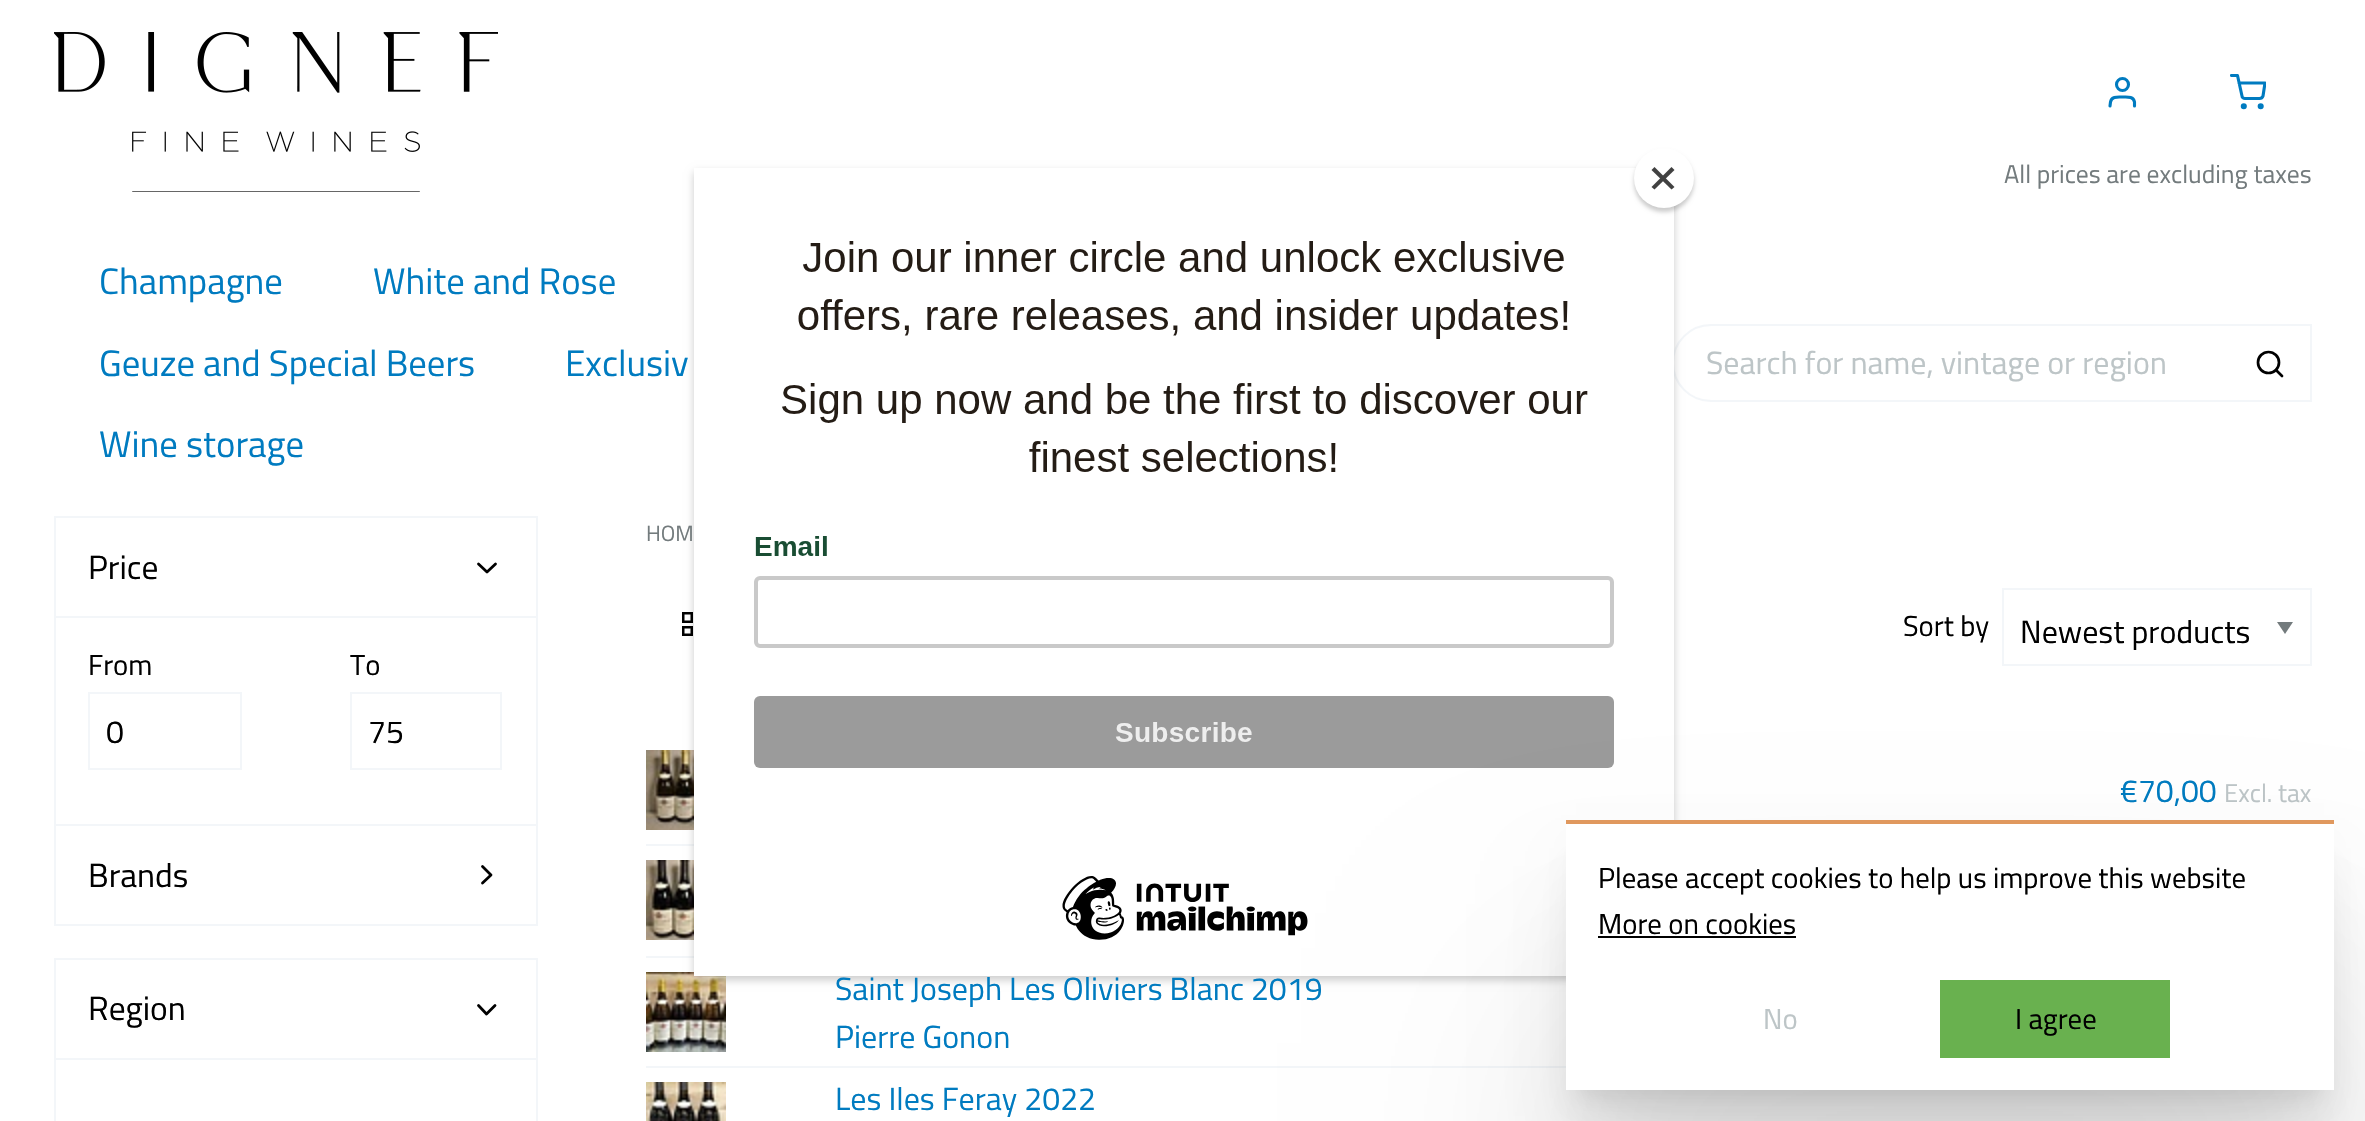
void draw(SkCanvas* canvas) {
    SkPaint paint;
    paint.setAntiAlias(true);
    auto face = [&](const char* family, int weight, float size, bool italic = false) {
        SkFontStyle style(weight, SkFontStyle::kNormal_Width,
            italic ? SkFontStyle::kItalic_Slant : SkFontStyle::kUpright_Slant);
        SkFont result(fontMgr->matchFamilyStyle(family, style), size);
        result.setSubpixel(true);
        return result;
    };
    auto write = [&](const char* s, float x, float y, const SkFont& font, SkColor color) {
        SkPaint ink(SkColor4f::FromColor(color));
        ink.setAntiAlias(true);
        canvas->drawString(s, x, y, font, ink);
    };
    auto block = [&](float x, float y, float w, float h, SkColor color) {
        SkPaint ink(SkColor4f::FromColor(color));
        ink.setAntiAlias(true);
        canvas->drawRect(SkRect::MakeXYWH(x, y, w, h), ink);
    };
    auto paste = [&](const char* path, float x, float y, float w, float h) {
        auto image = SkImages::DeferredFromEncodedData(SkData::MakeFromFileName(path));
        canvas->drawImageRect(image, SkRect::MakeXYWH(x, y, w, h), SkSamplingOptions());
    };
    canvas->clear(SK_ColorWHITE);
    paint.setColor(SkColorSetARGB(51, 0, 0, 0));
    paint.setMaskFilter(SkMaskFilter::MakeBlur(kNormal_SkBlurStyle, 2));
    canvas->drawRoundRect(SkRect::MakeXYWH(1634, 152, 60, 60), 30, 30, paint);
    paint.setMaskFilter(nullptr);
    paint.setStyle(SkPaint::kStroke_Style);
    paint.setStrokeWidth(2);
    paint.setColor(SkColorSetRGB(243, 246, 249));
    canvas->drawPath(SkPathBuilder().moveTo(1711, 325).lineTo(2311, 325).lineTo(2311, 401).lineTo(1711, 401).cubicTo(1690, 401, 1673, 384, 1673, 363).cubicTo(1673, 342, 1690, 325, 1711, 325).close().detach(), paint);
    paint.setStrokeWidth(2.5f);
    paint.setColor(SK_ColorBLACK);
    canvas->drawRect(SkRect::MakeXYWH(683.25f, 613.25f, 8.5f, 8.5f), paint);
    canvas->drawRect(SkRect::MakeXYWH(683.25f, 627.25f, 8.5f, 7.5f), paint);
    block(646, 844, 48, 2, SkColorSetRGB(243, 246, 249));
    paste("pic3.png", 646, 750, 48, 80);
    block(646, 956, 48, 2, SkColorSetRGB(243, 246, 249));
    paste("pic4.png", 646, 860, 48, 80);
    paste("pic5.png", 646, 972, 80, 80);
    canvas->save();
    canvas->clipPath(SkPathBuilder(SkPathFillType::kEvenOdd).moveTo(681, 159).lineTo(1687, 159).lineTo(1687, 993).lineTo(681, 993).close().moveTo(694, 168).lineTo(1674, 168).lineTo(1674, 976).lineTo(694, 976).close().detach(), true);
    paint.setStyle(SkPaint::kFill_Style);
    paint.setColor(SkColorSetARGB(51, 0, 0, 0));
    paint.setMaskFilter(SkMaskFilter::MakeBlur(kNormal_SkBlurStyle, 4));
    canvas->drawRect(SkRect::MakeXYWH(694, 172, 980, 808), paint);
    paint.setMaskFilter(nullptr);
    canvas->restore();
    paint.setColor(SK_ColorWHITE);
    canvas->drawCircle(1664, 178, 30, paint);
    paint.setColor(SkColorSetRGB(65, 65, 65));
    canvas->drawPath(SkPathBuilder().moveTo(1671.5f, 167).lineTo(1674.5f, 170).lineTo(1654.5f, 189.5f).lineTo(1651.5f, 187).close().detach(), paint);
    canvas->drawPath(SkPathBuilder().moveTo(1651.5f, 170).lineTo(1654.5f, 167).lineTo(1674.5f, 187).lineTo(1671.5f, 189.5f).close().detach(), paint);
    paste("pic1.png", 694, 241, 980, 735);
    paste("pic2.png", 54, 32, 444, 160);
    paint.setStyle(SkPaint::kStroke_Style);
    paint.setStrokeWidth(3.1f);
    paint.setStrokeCap(SkPaint::kRound_Cap);
    paint.setStrokeJoin(SkPaint::kRound_Join);
    paint.setColor(SkColorSetRGB(0, 123, 192));
    canvas->drawPath(SkPathBuilder().moveTo(2134.5f, 106).lineTo(2134.5f, 102).cubicTo(2133.5f, 96, 2127, 97, 2122.5f, 97).cubicTo(2118, 97, 2111.5f, 96, 2110.5f, 102).lineTo(2110, 106).detach(), paint);
    paint.setStrokeCap(SkPaint::kButt_Cap);
    paint.setStrokeJoin(SkPaint::kMiter_Join);
    canvas->drawCircle(2122.5f, 84.5f, 6, paint);
    canvas->drawCircle(2243.8f, 106.2f, 1.5f, paint);
    canvas->drawCircle(2260.7f, 106.2f, 1.5f, paint);
    canvas->save();
    canvas->clipRect(SkRect::MakeXYWH(2230, 74, 36, 36));
    paint.setStrokeCap(SkPaint::kRound_Cap);
    paint.setStrokeJoin(SkPaint::kRound_Join);
    canvas->drawPath(SkPathBuilder().moveTo(2231.5f, 75.5f).lineTo(2237.5f, 75.5f).lineTo(2242, 96).cubicTo(2242, 97.5f, 2243.5f, 98.5f, 2245, 98.5f).lineTo(2259.5f, 98.5f).cubicTo(2261, 98.5f, 2262.5f, 97.5f, 2263, 96).lineTo(2265, 83).lineTo(2239, 83).detach(), paint);
    canvas->restore();
    auto kFont1 = face("Titillium Web", 400, 25.6f);
    write("All prices are excluding taxes", 2004, 183, kFont1, SkColorSetRGB(115, 123, 125));
    auto kFont2 = face("Titillium Web", 400, 36.75f);
    write("Champagne", 99, 294, kFont2, SkColorSetRGB(0, 123, 192));
    write("White and Rose", 373, 294, kFont2, SkColorSetRGB(0, 123, 192));
    write("Geuze and Special Beers", 99, 376, kFont2, SkColorSetRGB(0, 123, 192));
    write("Exclusiv", 565, 376, kFont2, SkColorSetRGB(0, 123, 192));
    write("Wine storage", 99, 457, kFont2, SkColorSetRGB(0, 123, 192));
    auto kFont3 = face("Titillium Web", 400, 32);
    write("Search for name, vintage or region", 1706, 374, kFont3, SkColorSetRGB(189, 197, 199));
    paint.setStrokeWidth(2.7f);
    paint.setStrokeCap(SkPaint::kButt_Cap);
    paint.setStrokeJoin(SkPaint::kMiter_Join);
    paint.setColor(SK_ColorBLACK);
    canvas->drawCircle(2268.5f, 362.5f, 10.5f, paint);
    paint.setStrokeCap(SkPaint::kRound_Cap);
    paint.setStrokeJoin(SkPaint::kRound_Join);
    canvas->drawPath(SkPathBuilder().moveTo(2282, 376).lineTo(2276, 370).detach(), paint);
    block(54, 516, 484, 2, SkColorSetRGB(243, 246, 249));
    block(536, 516, 2, 100, SkColorSetRGB(243, 246, 249));
    block(54, 516, 2, 100, SkColorSetRGB(243, 246, 249));
    auto kFont4 = face("Titillium Web", 400, 33.5f);
    write("Price", 88, 579, kFont4, SK_ColorBLACK);
    paint.setStrokeWidth(2.8f);
    canvas->drawPath(SkPathBuilder().moveTo(478.5f, 564).lineTo(487, 572).lineTo(495.5f, 564).detach(), paint);
    block(54, 616, 484, 2, SkColorSetRGB(243, 246, 249));
    block(536, 616, 2, 208, SkColorSetRGB(243, 246, 249));
    block(54, 616, 2, 208, SkColorSetRGB(243, 246, 249));
    auto kFont5 = face("Titillium Web", 400, 28.8f);
    write("From", 88, 675, kFont5, SK_ColorBLACK);
    paint.setStrokeWidth(2);
    paint.setStrokeCap(SkPaint::kButt_Cap);
    paint.setStrokeJoin(SkPaint::kMiter_Join);
    paint.setColor(SkColorSetRGB(243, 246, 249));
    canvas->drawRect(SkRect::MakeXYWH(89, 693, 152, 76), paint);
    write("0", 106, 743, kFont3, SK_ColorBLACK);
    write("To", 350, 675, kFont5, SK_ColorBLACK);
    canvas->drawRect(SkRect::MakeXYWH(351, 693, 150, 76), paint);
    write("75", 368, 743, kFont3, SK_ColorBLACK);
    canvas->drawRect(SkRect::MakeXYWH(55, 825, 482, 100), paint);
    write("Brands", 88, 887, kFont4, SK_ColorBLACK);
    paint.setStrokeWidth(2.8f);
    paint.setStrokeCap(SkPaint::kRound_Cap);
    paint.setStrokeJoin(SkPaint::kRound_Join);
    paint.setColor(SK_ColorBLACK);
    canvas->drawPath(SkPathBuilder().moveTo(482.5f, 883).lineTo(491, 875).lineTo(482.5f, 866.5f).detach(), paint);
    block(54, 958, 484, 2, SkColorSetRGB(243, 246, 249));
    block(536, 958, 2, 100, SkColorSetRGB(243, 246, 249));
    block(54, 958, 2, 100, SkColorSetRGB(243, 246, 249));
    write("Region", 88, 1020, kFont4, SK_ColorBLACK);
    canvas->drawPath(SkPathBuilder().moveTo(478.5f, 1005.5f).lineTo(486.5f, 1014).lineTo(495, 1005.5f).detach(), paint);
    paint.setStrokeWidth(2);
    paint.setStrokeCap(SkPaint::kButt_Cap);
    paint.setStrokeJoin(SkPaint::kMiter_Join);
    paint.setColor(SkColorSetRGB(243, 246, 249));
    canvas->drawRect(SkRect::MakeXYWH(55, 1059, 482, 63), paint);
    auto kFont6 = face("Titillium Web", 400, 22);
    write("HOM", 646, 541, kFont6, SkColorSetRGB(115, 123, 125));
    write("Sort by", 1903, 636, kFont5, SK_ColorBLACK);
    paint.setStyle(SkPaint::kFill_Style);
    paint.setColor(SkColorSetRGB(115, 123, 125));
    canvas->drawPath(SkPathBuilder().moveTo(2277, 622).lineTo(2293, 622).lineTo(2285, 634).close().detach(), paint);
    paint.setStyle(SkPaint::kStroke_Style);
    paint.setColor(SkColorSetRGB(243, 246, 249));
    canvas->drawRect(SkRect::MakeXYWH(2003, 589, 308, 76), paint);
    write("Newest products", 2020, 643, kFont3, SK_ColorBLACK);
    write("€70,00", 2120, 802, kFont3, SkColorSetRGB(0, 123, 192));
    write("Excl. tax", 2224, 802, kFont1, SkColorSetRGB(189, 197, 199));
    block(646, 1066, 920, 2, SkColorSetRGB(243, 246, 249));
    write("Saint Joseph Les Oliviers Blanc 2019", 835, 1000, kFont3, SkColorSetRGB(0, 123, 192));
    write("Pierre Gonon", 835, 1048, kFont3, SkColorSetRGB(0, 123, 192));
    paste("pic6.png", 646, 1082, 80, 39);
    write("Les Iles Feray 2022", 835, 1110, kFont3, SkColorSetRGB(0, 123, 192));
    paint.setStyle(SkPaint::kFill_Style);
    paint.setColor(SkColorSetARGB(31, 0, 0, 0));
    paint.setMaskFilter(SkMaskFilter::MakeBlur(kNormal_SkBlurStyle, 125));
    canvas->drawRect(SkRect::MakeXYWH(1576, 1030, 748, 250), paint);
    paint.setMaskFilter(nullptr);
    paint.setColor(SkColorSetARGB(20, 0, 0, 0));
    paint.setMaskFilter(SkMaskFilter::MakeBlur(kNormal_SkBlurStyle, 45.5f));
    canvas->drawRect(SkRect::MakeXYWH(1576, 904, 748, 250), paint);
    paint.setMaskFilter(nullptr);
    paint.setColor(SkColorSetARGB(18, 0, 0, 0));
    paint.setMaskFilter(SkMaskFilter::MakeBlur(kNormal_SkBlurStyle, 21));
    canvas->drawRect(SkRect::MakeXYWH(1576, 866, 748, 250), paint);
    paint.setMaskFilter(nullptr);
    paint.setColor(SkColorSetARGB(15, 0, 0, 0));
    paint.setMaskFilter(SkMaskFilter::MakeBlur(kNormal_SkBlurStyle, 9));
    canvas->drawRect(SkRect::MakeXYWH(1576, 848, 748, 250), paint);
    paint.setMaskFilter(nullptr);
    block(1566, 824, 768, 266, SK_ColorWHITE);
    block(1566, 820, 768, 4, SkColorSetRGB(224, 152, 94));
    write("Please accept cookies to help us improve this website", 1598, 888, kFont5, SK_ColorBLACK);
    write("More on cookies", 1598, 934, kFont5, SK_ColorBLACK);
    block(1598, 936, 198, 2, SK_ColorBLACK);
    write("No", 1763, 1029, kFont5, SkColorSetRGB(189, 197, 199));
    block(1940, 980, 230, 78, SkColorSetRGB(105, 177, 79));
    write("I agree", 2015, 1029, kFont5, SK_ColorBLACK);
}
